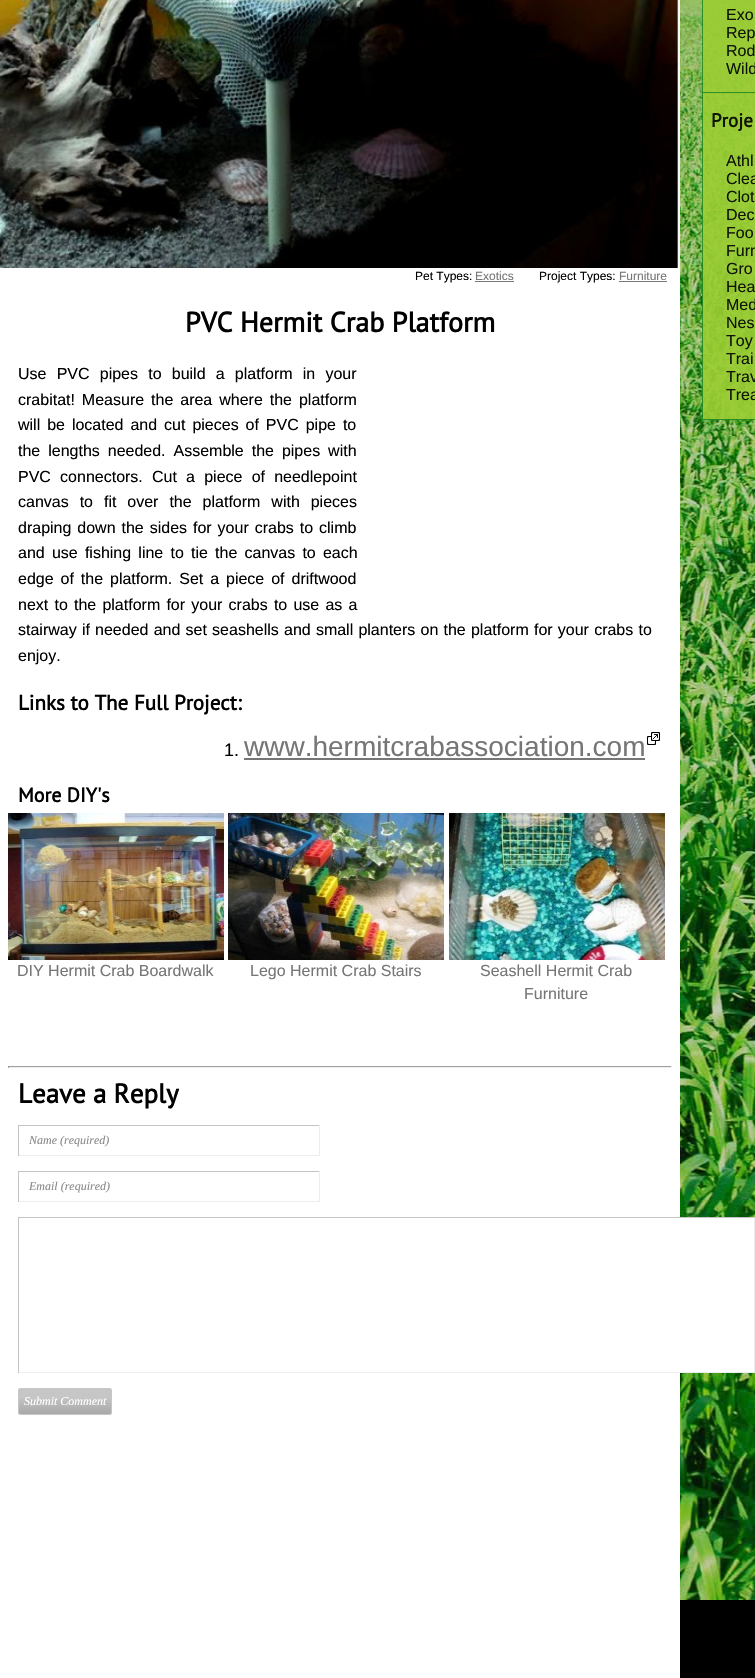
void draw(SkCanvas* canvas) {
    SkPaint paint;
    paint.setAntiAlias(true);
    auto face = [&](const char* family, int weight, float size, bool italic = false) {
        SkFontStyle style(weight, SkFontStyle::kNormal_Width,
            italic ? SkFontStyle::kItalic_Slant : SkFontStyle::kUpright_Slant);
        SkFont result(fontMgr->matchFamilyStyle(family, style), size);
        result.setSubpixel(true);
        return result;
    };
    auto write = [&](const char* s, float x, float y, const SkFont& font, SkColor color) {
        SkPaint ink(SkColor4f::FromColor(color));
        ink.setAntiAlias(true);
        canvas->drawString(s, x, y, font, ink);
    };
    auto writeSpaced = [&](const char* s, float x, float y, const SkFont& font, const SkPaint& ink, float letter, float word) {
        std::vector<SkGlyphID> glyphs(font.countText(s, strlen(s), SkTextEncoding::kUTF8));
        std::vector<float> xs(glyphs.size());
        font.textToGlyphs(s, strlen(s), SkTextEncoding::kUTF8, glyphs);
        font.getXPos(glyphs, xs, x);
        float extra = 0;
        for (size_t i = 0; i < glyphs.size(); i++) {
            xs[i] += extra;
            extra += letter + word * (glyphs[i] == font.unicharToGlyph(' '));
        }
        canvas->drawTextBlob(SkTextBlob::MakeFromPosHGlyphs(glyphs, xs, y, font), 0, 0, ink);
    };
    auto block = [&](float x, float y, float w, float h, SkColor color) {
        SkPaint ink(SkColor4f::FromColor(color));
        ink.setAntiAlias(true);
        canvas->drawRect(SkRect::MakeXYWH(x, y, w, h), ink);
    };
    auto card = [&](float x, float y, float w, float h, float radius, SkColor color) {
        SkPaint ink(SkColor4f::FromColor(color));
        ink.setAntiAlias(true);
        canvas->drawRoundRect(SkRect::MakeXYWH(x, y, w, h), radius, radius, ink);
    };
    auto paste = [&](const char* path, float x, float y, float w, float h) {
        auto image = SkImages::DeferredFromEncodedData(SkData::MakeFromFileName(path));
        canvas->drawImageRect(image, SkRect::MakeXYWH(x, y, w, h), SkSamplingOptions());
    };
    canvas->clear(SK_ColorBLACK);
    paste("pic1.png", 680, 0, 75, 1600);
    block(703, 0, 52, 93, SkColorSetARGB(230, 154, 205, 50));
    paint.setStyle(SkPaint::kStroke_Style);
    paint.setStrokeWidth(1);
    paint.setColor(SkColorSetARGB(230, 34, 139, 34));
    canvas->drawRect(SkRect::MakeXYWH(702.5f, -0.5f, 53, 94), paint);
    auto kFont1 = face("Liberation Sans", 400, 16);
    write("Exo", 726, 20, kFont1, SkColorSetRGB(15, 20, 5));
    write("Rep", 726, 38, kFont1, SkColorSetRGB(15, 20, 5));
    write("Rod", 726, 56, kFont1, SkColorSetRGB(15, 20, 5));
    write("Wild", 726, 74, kFont1, SkColorSetRGB(15, 20, 5));
    block(703, 93, 52, 326, SkColorSetARGB(230, 154, 205, 50));
    canvas->drawRect(SkRect::MakeXYWH(702.5f, 92.5f, 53, 327), paint);
    auto kFont2 = face("PT Sans", 700, 19);
    write("Proje", 711, 127, kFont2, SkColorSetRGB(15, 20, 5));
    write("Athl", 726, 166, kFont1, SkColorSetRGB(15, 20, 5));
    write("Clea", 726, 184, kFont1, SkColorSetRGB(15, 20, 5));
    write("Clot", 726, 202, kFont1, SkColorSetRGB(15, 20, 5));
    write("Dec", 726, 220, kFont1, SkColorSetRGB(15, 20, 5));
    write("Foo", 726, 238, kFont1, SkColorSetRGB(15, 20, 5));
    write("Furn", 726, 256, kFont1, SkColorSetRGB(15, 20, 5));
    write("Gro", 726, 274, kFont1, SkColorSetRGB(15, 20, 5));
    write("Hea", 726, 292, kFont1, SkColorSetRGB(15, 20, 5));
    write("Med", 726, 310, kFont1, SkColorSetRGB(15, 20, 5));
    write("Nes", 726, 328, kFont1, SkColorSetRGB(15, 20, 5));
    write("Toy", 726, 346, kFont1, SkColorSetRGB(15, 20, 5));
    write("Trai", 726, 364, kFont1, SkColorSetRGB(15, 20, 5));
    write("Trav", 726, 382, kFont1, SkColorSetRGB(15, 20, 5));
    write("Trea", 726, 400, kFont1, SkColorSetRGB(15, 20, 5));
    paste("pic2.png", 0, 0, 680, 268);
    block(0, 268, 680, 1410, SK_ColorWHITE);
    auto kFont3 = face("Liberation Sans", 400, 12);
    write("Pet Types:", 415, 280, kFont3, SK_ColorBLACK);
    write("Exotics", 475, 280, kFont3, SkColorSetRGB(118, 118, 118));
    block(475, 281, 39, 1, SkColorSetRGB(118, 118, 118));
    write("Project Types:", 539, 280, kFont3, SK_ColorBLACK);
    write("Furniture", 619, 280, kFont3, SkColorSetRGB(118, 118, 118));
    block(619, 281, 48, 1, SkColorSetRGB(118, 118, 118));
    auto kFont4 = face("PT Sans", 700, 28);
    write("PVC Hermit Crab Platform", 185, 332, kFont4, SK_ColorBLACK);
    paint.setStyle(SkPaint::kFill_Style);
    paint.setColor(SK_ColorBLACK);
    writeSpaced("Use PVC pipes to build a platform in your", 18, 379, kFont1, paint, 0, 5.75f);
    writeSpaced("crabitat! Measure the area where the platform", 18, 405, kFont1, paint, 0, 2.5f);
    writeSpaced("will be located and cut pieces of PVC pipe to", 18, 430, kFont1, paint, 0, 2.5f);
    writeSpaced("the lengths needed. Assemble the pipes with", 18, 456, kFont1, paint, 0, 3.5f);
    writeSpaced("PVC connectors. Cut a piece of needlepoint", 18, 482, kFont1, paint, 0, 4.75f);
    writeSpaced("canvas to fit over the platform with pieces", 18, 507, kFont1, paint, 0, 6.5f);
    writeSpaced("draping down the sides for your crabs to climb", 18, 533, kFont1, paint, 0, 1.5f);
    writeSpaced("and use fishing line to tie the canvas to each", 18, 558, kFont1, paint, 0, 2.75f);
    writeSpaced("edge of the platform. Set a piece of driftwood", 18, 584, kFont1, paint, 0, 2.5f);
    writeSpaced("next to the platform for your crabs to use as a", 18, 610, kFont1, paint, 0, 1.75f);
    writeSpaced("stairway if needed and set seashells and small planters on the platform for your crabs to", 18, 635, kFont1, paint, 0, 0.75f);
    write("enjoy.", 18, 661, kFont1, SK_ColorBLACK);
    auto kFont5 = face("PT Sans", 700, 21);
    write("Links to The Full Project:", 18, 710, kFont5, SK_ColorBLACK);
    auto kFont6 = face("Liberation Sans", 400, 18);
    write("1.", 224, 756, kFont6, SK_ColorBLACK);
    auto kFont7 = face("Liberation Sans", 400, 28);
    write("www.hermitcrabassociation.com", 244, 756, kFont7, SkColorSetRGB(118, 118, 118));
    block(244, 758, 401, 2, SkColorSetRGB(118, 118, 118));
    paste("pic3.png", 647, 732, 13, 13);
    auto kFont8 = face("PT Sans", 700, 20);
    write("More DIY's", 18, 802, kFont8, SK_ColorBLACK);
    paste("pic4.png", 8, 813, 216, 147);
    write("DIY Hermit Crab Boardwalk", 17, 976, kFont1, SkColorSetRGB(118, 118, 118));
    paste("pic5.png", 228, 813, 216, 147);
    write("Lego Hermit Crab Stairs", 250, 976, kFont1, SkColorSetRGB(118, 118, 118));
    paste("pic6.png", 449, 813, 216, 147);
    write("Seashell Hermit Crab", 480, 976, kFont1, SkColorSetRGB(118, 118, 118));
    write("Furniture", 524, 999, kFont1, SkColorSetRGB(118, 118, 118));
    block(8, 1066, 664, 1, SkColorSetRGB(159, 159, 159));
    block(671, 1066, 1, 2, SkColorSetRGB(238, 238, 238));
    block(8, 1067, 664, 1, SkColorSetRGB(238, 238, 238));
    block(8, 1066, 1, 2, SkColorSetRGB(159, 159, 159));
    auto kFont9 = face("PT Sans", 700, 27);
    write("Leave a Reply", 18, 1103, kFont9, SK_ColorBLACK);
    block(18, 1125, 302, 1, SkColorSetRGB(197, 195, 195));
    block(319, 1125, 1, 31, SkColorSetRGB(237, 237, 237));
    block(18, 1155, 302, 1, SkColorSetRGB(237, 237, 237));
    block(18, 1125, 1, 31, SkColorSetRGB(197, 195, 195));
    auto kFont10 = face("Liberation Serif", 400, 12, true);
    write("Name (required)", 29, 1144, kFont10, SkColorSetRGB(136, 136, 136));
    block(18, 1171, 302, 1, SkColorSetRGB(197, 195, 195));
    block(319, 1171, 1, 31, SkColorSetRGB(237, 237, 237));
    block(18, 1201, 302, 1, SkColorSetRGB(237, 237, 237));
    block(18, 1171, 1, 31, SkColorSetRGB(197, 195, 195));
    write("Email (required)", 29, 1190, kFont10, SkColorSetRGB(136, 136, 136));
    block(680, 1218, 74, 154, SK_ColorWHITE);
    block(18, 1217, 737, 1, SkColorSetRGB(197, 195, 195));
    block(754, 1217, 1, 156, SkColorSetRGB(237, 237, 237));
    block(18, 1372, 737, 1, SkColorSetRGB(237, 237, 237));
    block(18, 1217, 1, 156, SkColorSetRGB(197, 195, 195));
    card(18, 1388, 94, 27, 3, SkColorSetRGB(198, 198, 198));
    paste("pic7.png", 18, 1399, 94, 15);
    paint.setStyle(SkPaint::kStroke_Style);
    paint.setColor(SkColorSetRGB(198, 198, 198));
    canvas->drawRoundRect(SkRect::MakeXYWH(18.5f, 1388.5f, 93, 26), 2.5f, 2.5f, paint);
    write("Submit Comment", 24, 1405, kFont10, SK_ColorWHITE);
}
